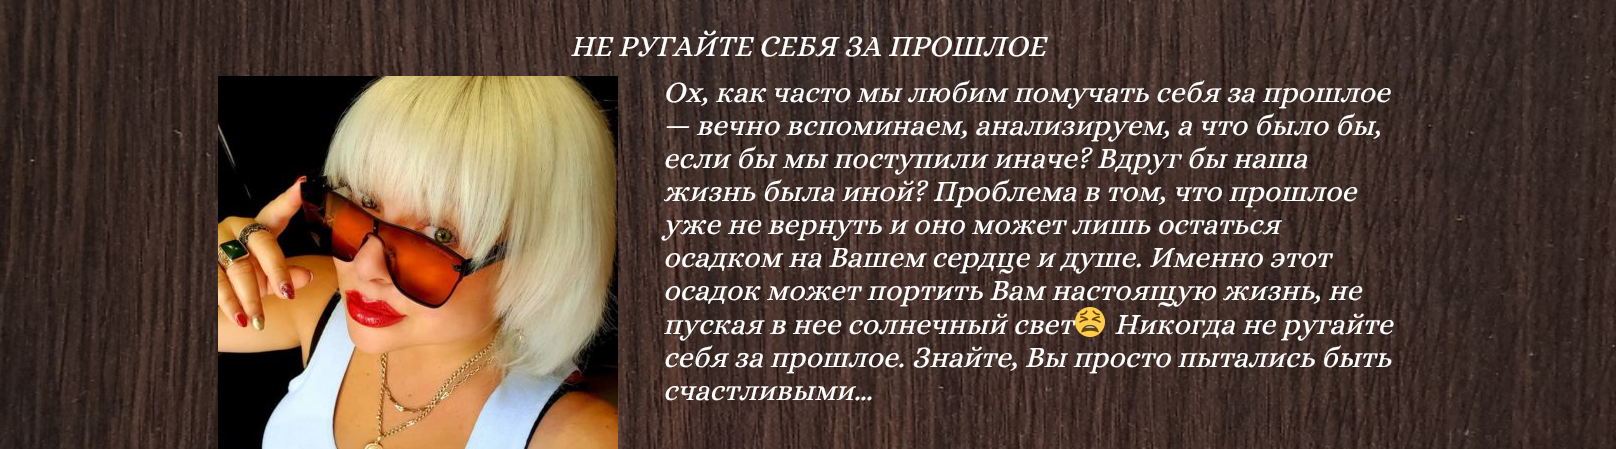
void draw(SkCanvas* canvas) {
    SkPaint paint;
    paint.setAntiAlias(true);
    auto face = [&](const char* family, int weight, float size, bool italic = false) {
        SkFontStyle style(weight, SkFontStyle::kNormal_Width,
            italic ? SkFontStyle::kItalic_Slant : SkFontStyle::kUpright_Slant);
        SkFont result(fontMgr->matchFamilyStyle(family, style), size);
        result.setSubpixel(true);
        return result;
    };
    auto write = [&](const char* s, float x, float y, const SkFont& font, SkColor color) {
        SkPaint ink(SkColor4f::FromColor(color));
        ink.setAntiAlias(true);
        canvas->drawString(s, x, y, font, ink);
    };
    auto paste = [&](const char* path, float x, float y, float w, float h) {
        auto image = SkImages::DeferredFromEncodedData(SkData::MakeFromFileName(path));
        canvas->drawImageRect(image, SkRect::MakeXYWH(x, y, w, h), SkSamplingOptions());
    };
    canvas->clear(SK_ColorWHITE);
    paste("pic1.png", 0, 0, 1616, 449);
    auto kFont1 = face("Alice", 400, 30, true);
    write("НЕ РУГАЙТЕ СЕБЯ ЗА ПРОШЛОЕ", 570, 56, kFont1, SK_ColorWHITE);
    paste("pic2.png", 218, 76, 400, 373);
    write("Ох, как часто мы любим помучать себя за прошлое", 663, 102, kFont1, SK_ColorWHITE);
    write("— вечно вспоминаем, анализируем, а что было бы,", 663, 135, kFont1, SK_ColorWHITE);
    write("если бы мы поступили иначе? Вдруг бы наша", 663, 168, kFont1, SK_ColorWHITE);
    write("жизнь была иной? Проблема в том, что прошлое", 663, 201, kFont1, SK_ColorWHITE);
    write("уже не вернуть и оно может лишь остаться", 663, 234, kFont1, SK_ColorWHITE);
    write("осадком на Вашем сердце и душе. Именно этот", 663, 267, kFont1, SK_ColorWHITE);
    write("осадок может портить Вам настоящую жизнь, не", 663, 300, kFont1, SK_ColorWHITE);
    write("пуская в нее солнечный свет", 663, 334, kFont1, SK_ColorWHITE);
    paste("pic3.png", 1075, 307, 30, 30);
    write("Никогда не ругайте", 1114, 334, kFont1, SK_ColorWHITE);
    write("себя за прошлое. Знайте, Вы просто пытались быть", 663, 367, kFont1, SK_ColorWHITE);
    write("счастливыми…", 663, 400, kFont1, SK_ColorWHITE);
}
